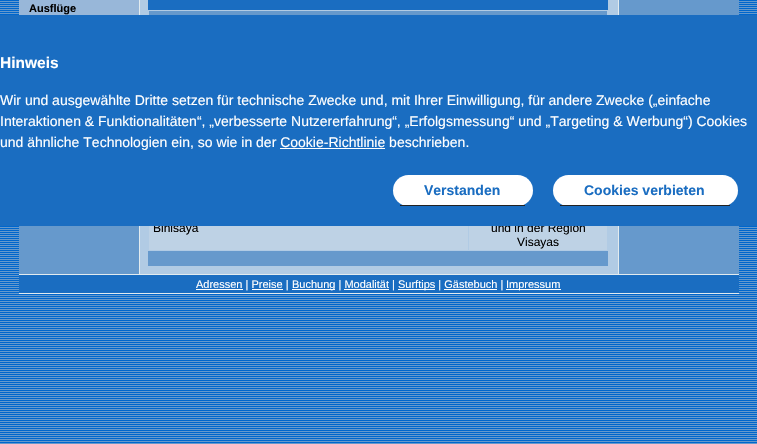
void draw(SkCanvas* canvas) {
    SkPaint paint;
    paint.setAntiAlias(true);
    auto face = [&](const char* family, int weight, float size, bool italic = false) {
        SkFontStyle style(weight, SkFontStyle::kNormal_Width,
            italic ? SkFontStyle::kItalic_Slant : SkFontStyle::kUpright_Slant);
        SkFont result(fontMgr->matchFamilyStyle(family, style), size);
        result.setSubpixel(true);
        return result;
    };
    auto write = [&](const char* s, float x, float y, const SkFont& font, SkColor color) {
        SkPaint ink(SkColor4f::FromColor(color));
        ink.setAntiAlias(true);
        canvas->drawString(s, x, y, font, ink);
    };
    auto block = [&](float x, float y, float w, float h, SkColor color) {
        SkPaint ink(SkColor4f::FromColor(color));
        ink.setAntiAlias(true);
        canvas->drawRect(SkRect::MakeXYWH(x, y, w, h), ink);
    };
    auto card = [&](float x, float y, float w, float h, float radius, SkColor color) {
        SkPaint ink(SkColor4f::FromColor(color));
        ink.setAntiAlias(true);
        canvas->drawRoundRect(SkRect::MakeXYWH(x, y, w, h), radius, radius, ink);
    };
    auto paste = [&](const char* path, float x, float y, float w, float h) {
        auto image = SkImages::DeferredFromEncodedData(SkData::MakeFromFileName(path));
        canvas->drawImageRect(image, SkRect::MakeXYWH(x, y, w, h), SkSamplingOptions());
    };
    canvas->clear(SK_ColorWHITE);
    paste("pic1.png", 0, 0, 757, 444);
    block(19, 226, 120, 47, SkColorSetRGB(102, 153, 204));
    block(19, 0, 120, 15, SkColorSetRGB(152, 183, 217));
    auto kFont1 = face("Liberation Sans", 700, 11);
    write("Ausflüge", 29, 12, kFont1, SK_ColorBLACK);
    block(619, 0, 120, 273, SkColorSetRGB(102, 153, 204));
    block(140, 0, 478, 274, SkColorSetRGB(177, 203, 228));
    block(618, 0, 1, 274, SkColorSetRGB(226, 235, 239));
    block(139, 0, 1, 274, SkColorSetRGB(226, 235, 239));
    block(148, 0, 460, 10, SkColorSetRGB(26, 109, 193));
    block(149, 11, 458, 4, SkColorSetRGB(102, 153, 204));
    block(149, 226, 319, 24, SkColorSetRGB(190, 210, 229));
    auto kFont2 = face("Liberation Sans", 400, 12);
    write("Binisaya", 153, 232, kFont2, SK_ColorBLACK);
    block(469, 226, 138, 24, SkColorSetRGB(190, 210, 229));
    write("und in der Region", 491, 232, kFont2, SK_ColorBLACK);
    write("Visayas", 517, 246, kFont2, SK_ColorBLACK);
    block(148, 251, 460, 15, SkColorSetRGB(102, 153, 204));
    block(19, 274, 720, 1, SkColorSetRGB(226, 235, 239));
    block(19, 275, 720, 18, SkColorSetRGB(26, 109, 193));
    block(196, 289, 47, 1, SK_ColorWHITE);
    auto kFont3 = face("Liberation Sans", 400, 11);
    write("Adressen | Preise |", 196, 288, kFont3, SK_ColorWHITE);
    block(252, 289, 31, 1, SK_ColorWHITE);
    block(292, 289, 43, 1, SK_ColorWHITE);
    write("Buchung | Modalität |", 292, 288, kFont3, SK_ColorWHITE);
    block(344, 289, 45, 1, SK_ColorWHITE);
    block(398, 289, 37, 1, SK_ColorWHITE);
    write("Surftips | Gästebuch |", 398, 288, kFont3, SK_ColorWHITE);
    block(444, 289, 53, 1, SK_ColorWHITE);
    block(506, 289, 55, 1, SK_ColorWHITE);
    write("Impressum", 506, 288, kFont3, SK_ColorWHITE);
    block(19, 293, 720, 1, SkColorSetRGB(226, 235, 239));
    block(0, 15, 757, 211, SkColorSetRGB(26, 109, 193));
    auto kFont4 = face("Liberation Sans", 700, 15.5f);
    write("Hinweis", 0, 68, kFont4, SK_ColorWHITE);
    auto kFont5 = face("Liberation Sans", 400, 14);
    write("Wir und ausgewählte Dritte setzen für technische Zwecke und, mit Ihrer Einwilligung, für andere Zwecke („einfache", 0, 105, kFont5, SK_ColorWHITE);
    write("Interaktionen & Funktionalitäten“, „verbesserte Nutzererfahrung“, „Erfolgsmessung“ und „Targeting & Werbung“) Cookies", 0, 126, kFont5, SK_ColorWHITE);
    write("und ähnliche Technologien ein, so wie in der Cookie-Richtlinie beschrieben.", 0, 147, kFont5, SK_ColorWHITE);
    block(280, 148, 105, 1, SK_ColorWHITE);
    card(393, 175, 140, 31, 15.5f, SK_ColorWHITE);
    block(400, 205, 125, 1, SkColorSetRGB(34, 34, 34));
    auto kFont6 = face("Liberation Sans", 700, 14);
    write("Verstanden", 424, 195, kFont6, SkColorSetRGB(26, 109, 193));
    card(553, 175, 185, 31, 15.5f, SK_ColorWHITE);
    block(560, 205, 170, 1, SkColorSetRGB(34, 34, 34));
    write("Cookies verbieten", 584, 195, kFont6, SkColorSetRGB(26, 109, 193));
}
